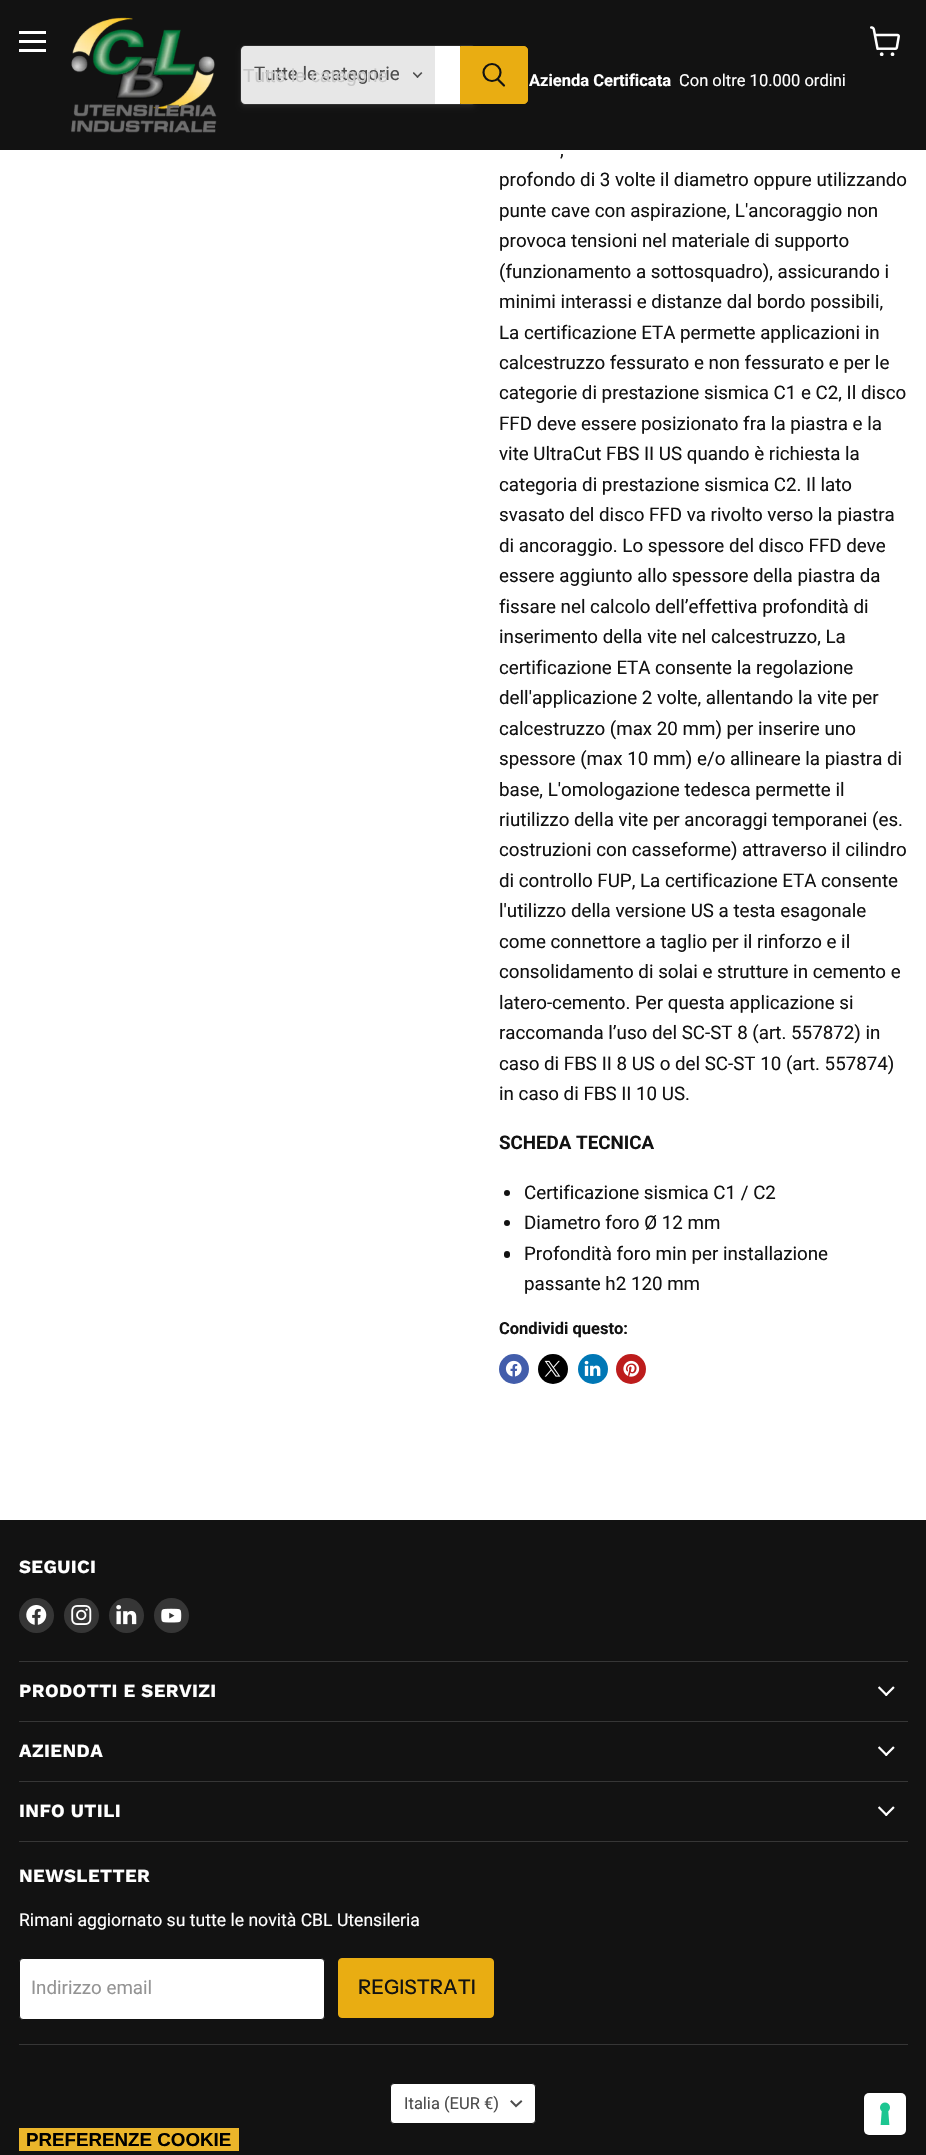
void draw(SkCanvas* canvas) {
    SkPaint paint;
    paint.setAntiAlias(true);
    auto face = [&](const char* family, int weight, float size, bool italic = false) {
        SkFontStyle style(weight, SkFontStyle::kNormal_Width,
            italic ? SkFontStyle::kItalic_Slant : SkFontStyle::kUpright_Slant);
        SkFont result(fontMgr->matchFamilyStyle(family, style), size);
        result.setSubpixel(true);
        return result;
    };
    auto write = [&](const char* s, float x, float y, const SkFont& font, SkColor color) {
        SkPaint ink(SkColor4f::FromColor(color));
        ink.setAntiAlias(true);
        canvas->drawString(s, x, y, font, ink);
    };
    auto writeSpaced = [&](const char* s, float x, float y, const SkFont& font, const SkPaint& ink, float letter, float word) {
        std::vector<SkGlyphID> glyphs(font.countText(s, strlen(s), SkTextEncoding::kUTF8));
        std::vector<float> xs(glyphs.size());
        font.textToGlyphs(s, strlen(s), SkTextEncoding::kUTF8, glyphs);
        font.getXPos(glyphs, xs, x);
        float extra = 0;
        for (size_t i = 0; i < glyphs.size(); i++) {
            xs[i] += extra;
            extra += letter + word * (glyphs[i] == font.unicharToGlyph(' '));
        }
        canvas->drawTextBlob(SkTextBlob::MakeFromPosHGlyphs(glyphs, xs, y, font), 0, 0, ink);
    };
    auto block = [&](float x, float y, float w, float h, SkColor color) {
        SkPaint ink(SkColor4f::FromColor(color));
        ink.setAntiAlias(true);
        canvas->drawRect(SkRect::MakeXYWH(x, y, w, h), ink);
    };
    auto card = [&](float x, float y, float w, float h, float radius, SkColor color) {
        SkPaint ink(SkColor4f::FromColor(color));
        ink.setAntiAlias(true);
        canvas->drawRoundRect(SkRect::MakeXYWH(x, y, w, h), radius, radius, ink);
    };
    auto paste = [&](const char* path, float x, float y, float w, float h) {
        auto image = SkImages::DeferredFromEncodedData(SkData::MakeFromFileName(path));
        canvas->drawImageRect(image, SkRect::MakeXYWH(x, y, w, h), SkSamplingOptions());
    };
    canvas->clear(SK_ColorWHITE);
    block(0, 0, 926, 150, SkColorSetRGB(18, 18, 18));
    block(19, 31, 27, 3, SK_ColorWHITE);
    block(19, 40, 27, 3, SK_ColorWHITE);
    block(19, 49, 27, 3, SK_ColorWHITE);
    paste("pic1.png", 870, 26, 30, 30);
    paste("pic2.png", 71, 17, 146, 116);
    paint.setColor(SkColorSetARGB(28, 128, 128, 128));
    paint.setMaskFilter(SkMaskFilter::MakeBlur(kNormal_SkBlurStyle, 2));
    canvas->drawRoundRect(SkRect::MakeXYWH(240, 48, 236, 60), 5, 5, paint);
    paint.setMaskFilter(nullptr);
    paint.setStyle(SkPaint::kStroke_Style);
    paint.setStrokeWidth(1);
    paint.setColor(SkColorSetARGB(51, 128, 128, 128));
    canvas->drawRoundRect(SkRect::MakeXYWH(240.5f, 45.5f, 235, 59), 4.5f, 4.5f, paint);
    paint.setStyle(SkPaint::kFill_Style);
    paint.setColor(SkColorSetRGB(231, 231, 231));
    canvas->drawPath(SkPathBuilder().moveTo(245, 46).lineTo(435, 46).lineTo(435, 104).lineTo(245, 104).cubicTo(243, 104, 241, 102, 241, 100).lineTo(241, 50).cubicTo(241, 48, 243, 46, 245, 46).close().detach(), paint);
    auto kFont1 = face("Roboto", 400, 18.75f);
    write("Tutte le categorie", 254, 80, kFont1, SkColorSetRGB(77, 77, 77));
    auto kFont2 = face("Liberation Sans", 400, 18.75f);
    write("Tutte le categorie", 243, 82, kFont2, SkColorSetRGB(199, 199, 199));
    paste("pic3.png", 413, 72, 10, 6);
    block(435, 46, 25, 58, SK_ColorWHITE);
    paint.setColor(SkColorSetRGB(233, 173, 18));
    canvas->drawPath(SkPathBuilder().moveTo(460.5f, 46.5f).lineTo(524, 46.5f).cubicTo(526, 46.5f, 527.5f, 48, 527.5f, 50).lineTo(527.5f, 100).cubicTo(527.5f, 102, 526, 103.5f, 524, 103.5f).lineTo(460.5f, 103.5f).close().detach(), paint);
    paint.setStyle(SkPaint::kStroke_Style);
    canvas->drawPath(SkPathBuilder().moveTo(460.5f, 46.5f).lineTo(524, 46.5f).cubicTo(526, 46.5f, 527.5f, 48, 527.5f, 50).lineTo(527.5f, 100).cubicTo(527.5f, 102, 526, 103.5f, 524, 103.5f).lineTo(460.5f, 103.5f).close().detach(), paint);
    paint.setStrokeWidth(2.2f);
    paint.setStrokeCap(SkPaint::kRound_Cap);
    paint.setColor(SkColorSetRGB(18, 18, 18));
    canvas->drawPath(SkPathBuilder().moveTo(504, 85.5f).lineTo(498, 79.5f).detach(), paint);
    paint.setStrokeCap(SkPaint::kButt_Cap);
    canvas->drawCircle(492, 72.5f, 8.5f, paint);
    auto kFont3 = face("Roboto", 700, 16.5f);
    write("Azienda Certificata", 529, 86, kFont3, SK_ColorWHITE);
    auto kFont4 = face("Roboto", 400, 16.5f);
    write("Con oltre 10.000 ordini", 679, 86, kFont4, SK_ColorWHITE);
    write(",", 560, 156, kFont1, SkColorSetRGB(18, 18, 18));
    write("profondo di 3 volte il diametro oppure utilizzando", 499, 186, kFont1, SkColorSetRGB(18, 18, 18));
    write("punte cave con aspirazione, L'ancoraggio non", 499, 217, kFont1, SkColorSetRGB(18, 18, 18));
    write("provoca tensioni nel materiale di supporto", 499, 247, kFont1, SkColorSetRGB(18, 18, 18));
    write("(funzionamento a sottosquadro), assicurando i", 499, 278, kFont1, SkColorSetRGB(18, 18, 18));
    write("minimi interassi e distanze dal bordo possibili,", 499, 308, kFont1, SkColorSetRGB(18, 18, 18));
    write("La certificazione ETA permette applicazioni in", 499, 339, kFont1, SkColorSetRGB(18, 18, 18));
    write("calcestruzzo fessurato e non fessurato e per le", 499, 369, kFont1, SkColorSetRGB(18, 18, 18));
    write("categorie di prestazione sismica C1 e C2, Il disco", 499, 399, kFont1, SkColorSetRGB(18, 18, 18));
    write("FFD deve essere posizionato fra la piastra e la", 499, 430, kFont1, SkColorSetRGB(18, 18, 18));
    write("vite UltraCut FBS II US quando è richiesta la", 499, 460, kFont1, SkColorSetRGB(18, 18, 18));
    write("categoria di prestazione sismica C2. Il lato", 499, 491, kFont1, SkColorSetRGB(18, 18, 18));
    write("svasato del disco FFD va rivolto verso la piastra", 499, 521, kFont1, SkColorSetRGB(18, 18, 18));
    write("di ancoraggio. Lo spessore del disco FFD deve", 499, 552, kFont1, SkColorSetRGB(18, 18, 18));
    write("essere aggiunto allo spessore della piastra da", 499, 582, kFont1, SkColorSetRGB(18, 18, 18));
    write("fissare nel calcolo dell’effettiva profondità di", 499, 613, kFont1, SkColorSetRGB(18, 18, 18));
    write("inserimento della vite nel calcestruzzo, La", 499, 643, kFont1, SkColorSetRGB(18, 18, 18));
    write("certificazione ETA consente la regolazione", 499, 674, kFont1, SkColorSetRGB(18, 18, 18));
    write("dell'applicazione 2 volte, allentando la vite per", 499, 704, kFont1, SkColorSetRGB(18, 18, 18));
    write("calcestruzzo (max 20 mm) per inserire uno", 499, 735, kFont1, SkColorSetRGB(18, 18, 18));
    write("spessore (max 10 mm) e/o allineare la piastra di", 499, 765, kFont1, SkColorSetRGB(18, 18, 18));
    write("base, L'omologazione tedesca permette il", 499, 796, kFont1, SkColorSetRGB(18, 18, 18));
    write("riutilizzo della vite per ancoraggi temporanei (es.", 499, 826, kFont1, SkColorSetRGB(18, 18, 18));
    write("costruzioni con casseforme) attraverso il cilindro", 499, 856, kFont1, SkColorSetRGB(18, 18, 18));
    write("di controllo FUP, La certificazione ETA consente", 499, 887, kFont1, SkColorSetRGB(18, 18, 18));
    write("l'utilizzo della versione US a testa esagonale", 499, 917, kFont1, SkColorSetRGB(18, 18, 18));
    write("come connettore a taglio per il rinforzo e il", 499, 948, kFont1, SkColorSetRGB(18, 18, 18));
    write("consolidamento di solai e strutture in cemento e", 499, 978, kFont1, SkColorSetRGB(18, 18, 18));
    write("latero-cemento. Per questa applicazione si", 499, 1009, kFont1, SkColorSetRGB(18, 18, 18));
    write("raccomanda l’uso del SC-ST 8 (art. 557872) in", 499, 1039, kFont1, SkColorSetRGB(18, 18, 18));
    write("caso di FBS II 8 US o del SC-ST 10 (art. 557874)", 499, 1070, kFont1, SkColorSetRGB(18, 18, 18));
    write("in caso di FBS II 10 US.", 499, 1100, kFont1, SkColorSetRGB(18, 18, 18));
    auto kFont5 = face("Roboto", 700, 18.75f);
    write("SCHEDA TECNICA", 499, 1149, kFont5, SkColorSetRGB(18, 18, 18));
    paint.setStyle(SkPaint::kFill_Style);
    canvas->drawCircle(507, 1193, 3, paint);
    write("Certificazione sismica C1 / C2", 524, 1199, kFont1, SkColorSetRGB(18, 18, 18));
    canvas->drawCircle(507, 1223, 3, paint);
    write("Diametro foro Ø 12 mm", 524, 1229, kFont1, SkColorSetRGB(18, 18, 18));
    card(504, 1251, 6, 7, 3, SkColorSetRGB(18, 18, 18));
    write("Profondità foro min per installazione", 524, 1260, kFont1, SkColorSetRGB(18, 18, 18));
    write("passante h2 120 mm", 524, 1290, kFont1, SkColorSetRGB(18, 18, 18));
    write("Condividi questo:", 499, 1334, kFont3, SkColorSetRGB(18, 18, 18));
    paint.setColor(SkColorSetRGB(66, 93, 171));
    canvas->drawCircle(514, 1369, 15, paint);
    paste("pic4.png", 505, 1360, 17, 17);
    paint.setColor(SK_ColorBLACK);
    canvas->drawCircle(553, 1369, 15, paint);
    paste("pic5.png", 544, 1360, 17, 17);
    paint.setColor(SkColorSetRGB(0, 119, 181));
    canvas->drawCircle(593, 1369, 15, paint);
    paste("pic6.png", 584, 1360, 17, 16);
    paint.setColor(SkColorSetRGB(189, 28, 28));
    canvas->drawCircle(631, 1369, 15, paint);
    paste("pic7.png", 623, 1360, 17, 17);
    block(0, 1520, 926, 635, SkColorSetRGB(18, 18, 18));
    block(19, 1661, 889, 1, SkColorSetRGB(54, 54, 54));
    auto kFont6 = face("Work Sans", 700, 18.5f);
    paint.setColor(SK_ColorWHITE);
    writeSpaced("SEGUICI", 19, 1573, kFont6, paint, 0.4f, 0);
    paint.setColor(SkColorSetRGB(54, 54, 54));
    canvas->drawCircle(36.5f, 1615.5f, 17.5f, paint);
    paste("pic8.png", 26, 1605, 21, 20);
    canvas->drawCircle(81.5f, 1615.5f, 17.5f, paint);
    paste("pic9.png", 71, 1605, 21, 20);
    canvas->drawCircle(126.5f, 1615.5f, 17.5f, paint);
    paste("pic10.png", 116, 1605, 21, 20);
    canvas->drawCircle(171.5f, 1615.5f, 17.5f, paint);
    paste("pic11.png", 161, 1608, 21, 15);
    block(19, 1721, 889, 1, SkColorSetRGB(54, 54, 54));
    paint.setColor(SK_ColorWHITE);
    writeSpaced("PRODOTTI E SERVIZI", 19, 1697, kFont6, paint, 0.4f, 0);
    paste("pic12.png", 878, 1686, 17, 10);
    block(19, 1781, 889, 1, SkColorSetRGB(54, 54, 54));
    writeSpaced("AZIENDA", 19, 1757, kFont6, paint, 0.4f, 0);
    paste("pic12.png", 878, 1746, 17, 10);
    block(19, 1841, 889, 1, SkColorSetRGB(54, 54, 54));
    writeSpaced("INFO UTILI", 19, 1817, kFont6, paint, 0.4f, 0);
    paste("pic12.png", 878, 1806, 17, 10);
    block(19, 2044, 889, 1, SkColorSetRGB(54, 54, 54));
    writeSpaced("NEWSLETTER", 19, 1882, kFont6, paint, 0.4f, 0);
    auto kFont7 = face("Roboto", 400, 17.6f);
    write("Rimani aggiornato su tutte le novità CBL Utensileria", 19, 1926, kFont7, SK_ColorWHITE);
    canvas->drawRoundRect(SkRect::MakeXYWH(19.5f, 1958.5f, 305, 61), 3.5f, 3.5f, paint);
    paint.setStyle(SkPaint::kStroke_Style);
    paint.setStrokeWidth(1);
    paint.setColor(SkColorSetRGB(18, 18, 18));
    canvas->drawRoundRect(SkRect::MakeXYWH(19.5f, 1958.5f, 305, 61), 3.5f, 3.5f, paint);
    write("Indirizzo email", 31, 1994, kFont1, SkColorSetRGB(148, 148, 148));
    paint.setStyle(SkPaint::kFill_Style);
    paint.setColor(SkColorSetRGB(233, 173, 18));
    canvas->drawRoundRect(SkRect::MakeXYWH(338.5f, 1958.5f, 155, 59), 3.5f, 3.5f, paint);
    paint.setStyle(SkPaint::kStroke_Style);
    canvas->drawRoundRect(SkRect::MakeXYWH(338.5f, 1958.5f, 155, 59), 3.5f, 3.5f, paint);
    auto kFont8 = face("Instrument Sans", 500, 20);
    write("REGISTRATI", 358, 1994, kFont8, SkColorSetRGB(18, 18, 18));
    paint.setStyle(SkPaint::kFill_Style);
    paint.setColor(SK_ColorWHITE);
    canvas->drawRoundRect(SkRect::MakeXYWH(390.5f, 2083.5f, 145, 40), 3.5f, 3.5f, paint);
    paint.setStyle(SkPaint::kStroke_Style);
    paint.setColor(SkColorSetRGB(18, 18, 18));
    canvas->drawRoundRect(SkRect::MakeXYWH(390.5f, 2083.5f, 145, 40), 3.5f, 3.5f, paint);
    write("Italia (EUR €)", 404, 2109, kFont4, SkColorSetRGB(77, 77, 77));
    paint.setStrokeWidth(2);
    paint.setStrokeCap(SkPaint::kSquare_Cap);
    paint.setColor(SkColorSetRGB(77, 77, 77));
    canvas->drawPath(SkPathBuilder().moveTo(516, 2106).lineTo(521, 2101.5f).moveTo(516, 2106).lineTo(511.5f, 2101.5f).detach(), paint);
    paint.setStrokeWidth(1);
    paint.setStrokeCap(SkPaint::kButt_Cap);
    paint.setColor(SkColorSetRGB(15, 15, 15));
    canvas->drawRoundRect(SkRect::MakeXYWH(863.5f, 2091.5f, 44, 44), 5.5f, 5.5f, paint);
    card(864, 2093, 42, 42, 5, SK_ColorWHITE);
    paste("pic13.png", 880, 2102, 10, 23);
    block(19, 2128, 220, 23, SkColorSetRGB(235, 181, 42));
    auto kFont9 = face("Liberation Sans", 700, 18.75f);
    write("PREFERENZE COOKIE", 26, 2146, kFont9, SK_ColorBLACK);
}
